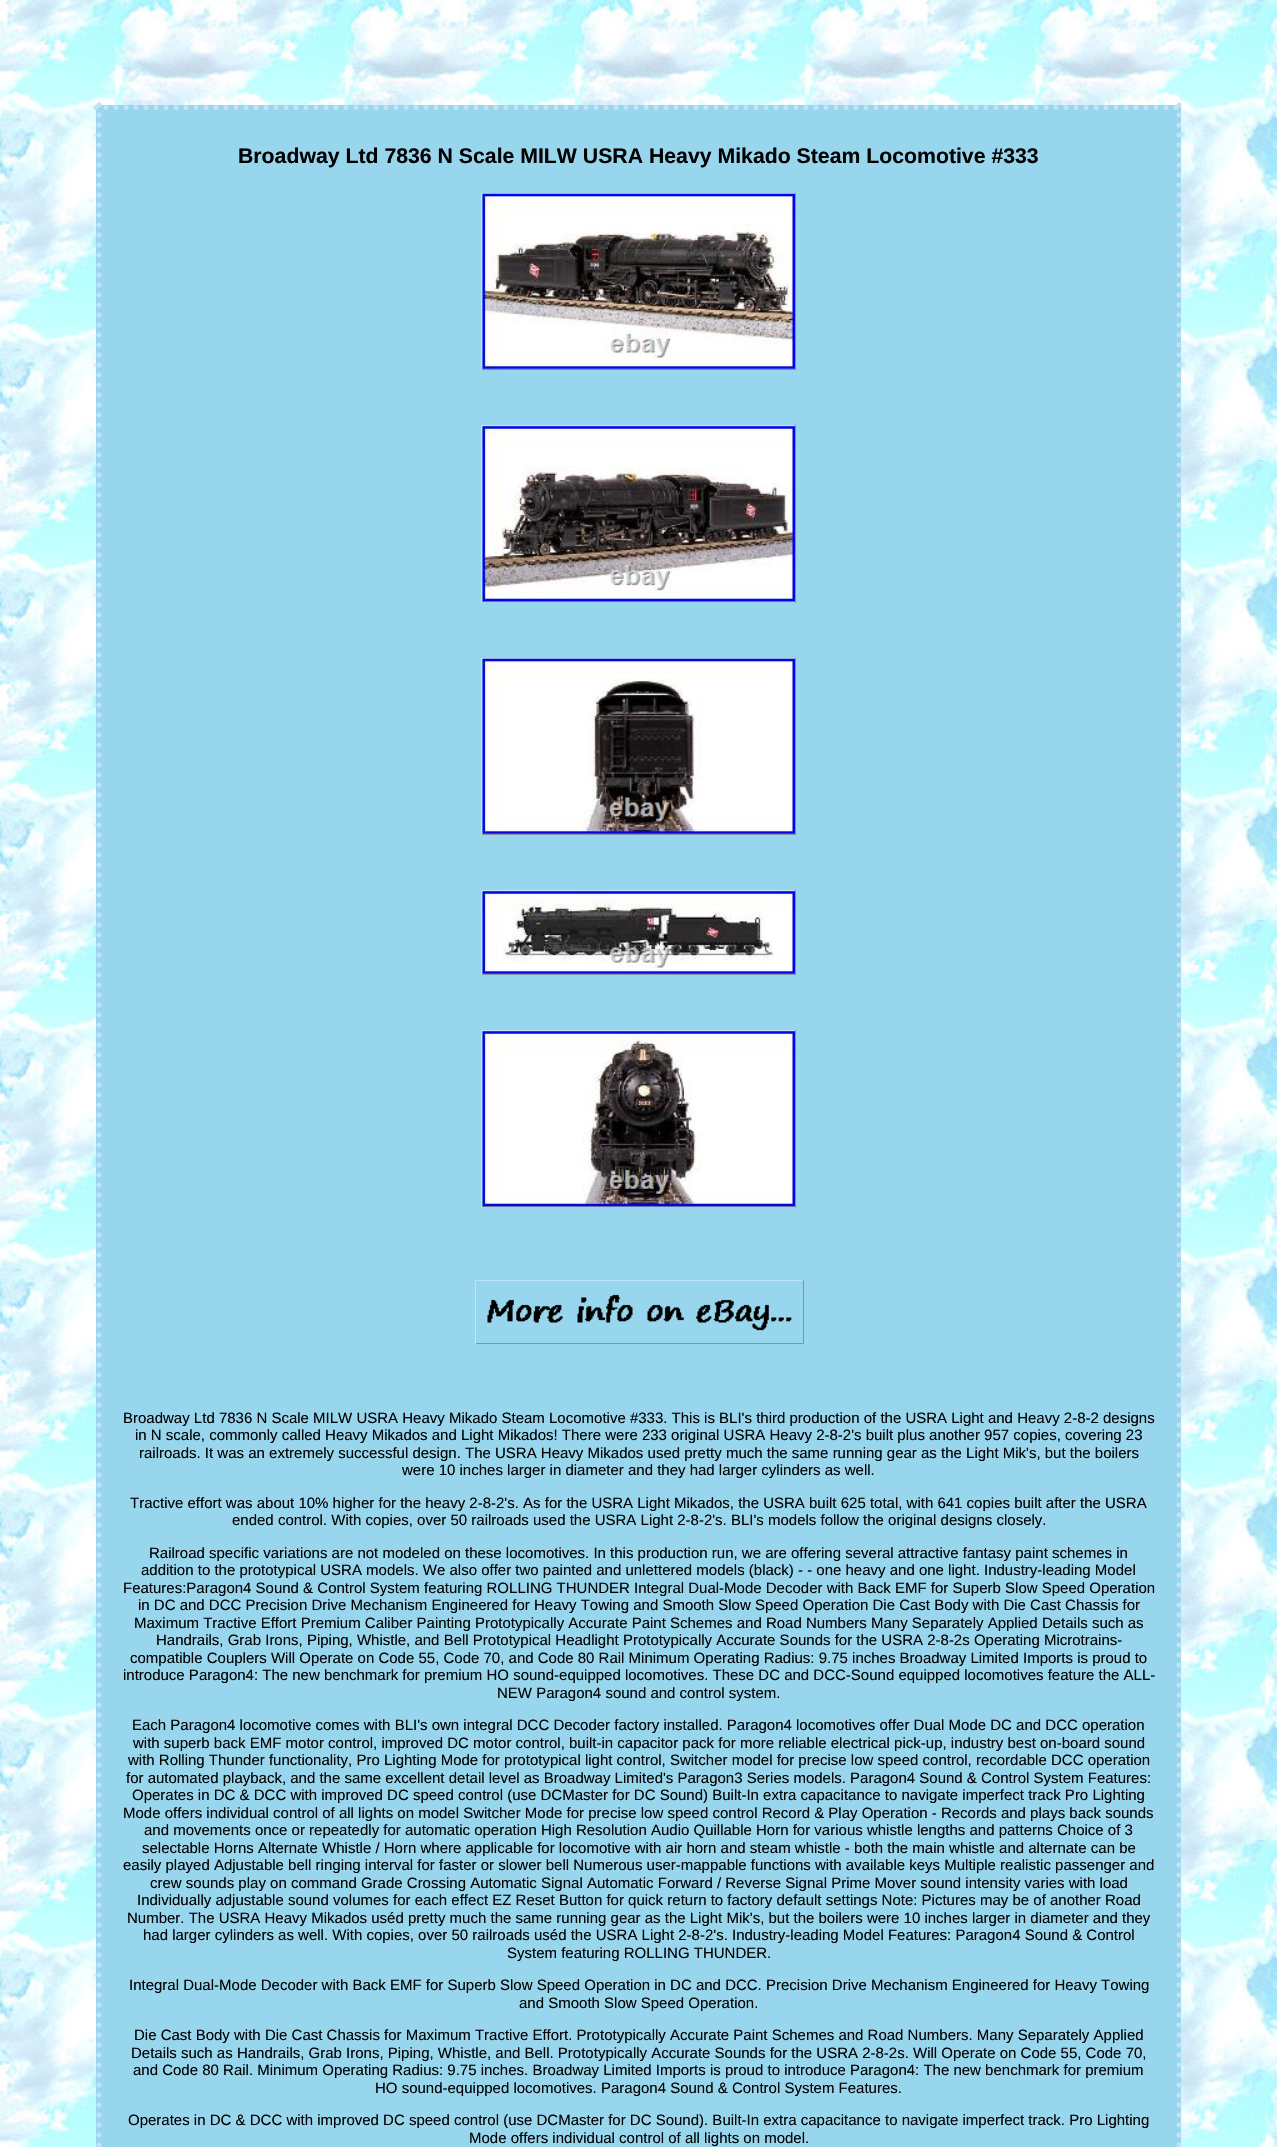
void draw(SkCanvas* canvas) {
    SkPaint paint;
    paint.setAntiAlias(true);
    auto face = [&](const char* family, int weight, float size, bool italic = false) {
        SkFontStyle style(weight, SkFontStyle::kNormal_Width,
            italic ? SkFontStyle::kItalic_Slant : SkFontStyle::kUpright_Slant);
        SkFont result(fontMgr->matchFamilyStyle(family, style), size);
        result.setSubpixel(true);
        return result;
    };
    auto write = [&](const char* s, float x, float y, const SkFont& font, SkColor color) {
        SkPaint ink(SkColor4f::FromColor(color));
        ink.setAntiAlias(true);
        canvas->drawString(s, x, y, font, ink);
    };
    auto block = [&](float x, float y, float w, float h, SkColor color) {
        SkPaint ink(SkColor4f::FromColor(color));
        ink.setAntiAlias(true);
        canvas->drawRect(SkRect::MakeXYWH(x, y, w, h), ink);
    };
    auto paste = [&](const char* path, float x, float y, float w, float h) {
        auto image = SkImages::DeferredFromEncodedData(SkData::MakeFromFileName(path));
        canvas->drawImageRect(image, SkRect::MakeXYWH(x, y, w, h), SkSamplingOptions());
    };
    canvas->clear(SK_ColorWHITE);
    paste("pic1.png", 0, 0, 1277, 2147);
    block(96, 105, 1085, 2042, SkColorSetRGB(152, 214, 237));
    paint.setStyle(SkPaint::kStroke_Style);
    paint.setStrokeWidth(5);
    paint.setStrokeCap(SkPaint::kRound_Cap);
    paint.setColor(SkColorSetRGB(194, 226, 247));
    paint.setPathEffect(SkDashPathEffect::Make({{0, 10}}, 0));
    canvas->drawPath(SkPathBuilder().moveTo(96, 107.5f).lineTo(1181, 107.5f).detach(), paint);
    paint.setPathEffect(nullptr);
    paint.setPathEffect(SkDashPathEffect::Make({{0, 10}}, 0));
    canvas->drawPath(SkPathBuilder().moveTo(1179, 105).lineTo(1179, 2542.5f).detach(), paint);
    paint.setPathEffect(nullptr);
    paint.setPathEffect(SkDashPathEffect::Make({{0, 10}}, 0));
    canvas->drawPath(SkPathBuilder().moveTo(99, 105).lineTo(99, 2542.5f).detach(), paint);
    paint.setPathEffect(nullptr);
    auto kFont1 = face("Liberation Sans", 700, 21.25f);
    write("Broadway Ltd 7836 N Scale MILW USRA Heavy Mikado Steam Locomotive #333", 238, 163, kFont1, SK_ColorBLACK);
    block(481, 193, 315, 1, SkColorSetRGB(194, 226, 247));
    block(795, 193, 1, 177, SkColorSetRGB(129, 151, 165));
    block(481, 369, 315, 1, SkColorSetRGB(129, 151, 165));
    block(481, 193, 1, 177, SkColorSetRGB(194, 226, 247));
    paste("pic2.png", 482, 193, 313, 176);
    block(481, 425, 315, 1, SkColorSetRGB(194, 226, 247));
    block(795, 425, 1, 178, SkColorSetRGB(129, 151, 165));
    block(481, 601, 315, 1, SkColorSetRGB(129, 151, 165));
    block(481, 425, 1, 178, SkColorSetRGB(194, 226, 247));
    paste("pic3.png", 482, 426, 313, 176);
    block(481, 658, 315, 1, SkColorSetRGB(194, 226, 247));
    block(795, 658, 1, 177, SkColorSetRGB(129, 151, 165));
    block(481, 834, 315, 1, SkColorSetRGB(129, 151, 165));
    block(481, 658, 1, 177, SkColorSetRGB(194, 226, 247));
    paste("pic4.png", 482, 658, 313, 176);
    block(481, 890, 315, 1, SkColorSetRGB(194, 226, 247));
    block(795, 890, 1, 85, SkColorSetRGB(129, 151, 165));
    block(481, 974, 315, 1, SkColorSetRGB(129, 151, 165));
    block(481, 890, 1, 85, SkColorSetRGB(194, 226, 247));
    paste("pic5.png", 482, 891, 313, 83);
    block(481, 1030, 315, 1, SkColorSetRGB(194, 226, 247));
    block(795, 1030, 1, 178, SkColorSetRGB(129, 151, 165));
    block(481, 1206, 315, 1, SkColorSetRGB(129, 151, 165));
    block(481, 1030, 1, 178, SkColorSetRGB(194, 226, 247));
    paste("pic6.png", 482, 1031, 313, 176);
    block(475, 1280, 329, 1, SkColorSetRGB(194, 226, 247));
    block(803, 1280, 1, 64, SkColorSetRGB(129, 151, 165));
    block(475, 1343, 329, 1, SkColorSetRGB(129, 151, 165));
    block(475, 1280, 1, 64, SkColorSetRGB(194, 226, 247));
    paste("pic7.png", 487, 1294, 305, 37);
    auto kFont2 = face("Liberation Sans", 400, 15);
    write("Broadway Ltd 7836 N Scale MILW USRA Heavy Mikado Steam Locomotive #333. This is BLI's third production of the USRA Light and Heavy 2-8-2 designs", 123, 1423, kFont2, SK_ColorBLACK);
    write("in N scale, commonly called Heavy Mikados and Light Mikados! There were 233 original USRA Heavy 2-8-2's built plus another 957 copies, covering 23", 135, 1440, kFont2, SK_ColorBLACK);
    write("railroads. It was an extremely successful design. The USRA Heavy Mikados used pretty much the same running gear as the Light Mik's, but the boilers", 139, 1458, kFont2, SK_ColorBLACK);
    write("were 10 inches larger in diameter and they had larger cylinders as well.", 402, 1475, kFont2, SK_ColorBLACK);
    write("Tractive effort was about 10% higher for the heavy 2-8-2's. As for the USRA Light Mikados, the USRA built 625 total, with 641 copies built after the USRA", 130, 1508, kFont2, SK_ColorBLACK);
    write("ended control. With copies, over 50 railroads used the USRA Light 2-8-2's. BLI's models follow the original designs closely.", 232, 1525, kFont2, SK_ColorBLACK);
    write("Railroad specific variations are not modeled on these locomotives. In this production run, we are offering several attractive fantasy paint schemes in", 149, 1558, kFont2, SK_ColorBLACK);
    write("addition to the prototypical USRA models. We also offer two painted and unlettered models (black) - - one heavy and one light. Industry-leading Model", 141, 1575, kFont2, SK_ColorBLACK);
    write("Features:Paragon4 Sound & Control System featuring ROLLING THUNDER Integral Dual-Mode Decoder with Back EMF for Superb Slow Speed Operation", 123, 1593, kFont2, SK_ColorBLACK);
    write("in DC and DCC Precision Drive Mechanism Engineered for Heavy Towing and Smooth Slow Speed Operation Die Cast Body with Die Cast Chassis for", 138, 1610, kFont2, SK_ColorBLACK);
    write("Maximum Tractive Effort Premium Caliber Painting Prototypically Accurate Paint Schemes and Road Numbers Many Separately Applied Details such as", 134, 1628, kFont2, SK_ColorBLACK);
    write("Handrails, Grab Irons, Piping, Whistle, and Bell Prototypical Headlight Prototypically Accurate Sounds for the USRA 2-8-2s Operating Microtrains-", 156, 1645, kFont2, SK_ColorBLACK);
    write("compatible Couplers Will Operate on Code 55, Code 70, and Code 80 Rail Minimum Operating Radius: 9.75 inches Broadway Limited Imports is proud to", 130, 1663, kFont2, SK_ColorBLACK);
    write("introduce Paragon4: The new benchmark for premium HO sound-equipped locomotives. These DC and DCC-Sound equipped locomotives feature the ALL-", 123, 1680, kFont2, SK_ColorBLACK);
    write("NEW Paragon4 sound and control system.", 497, 1698, kFont2, SK_ColorBLACK);
    write("Each Paragon4 locomotive comes with BLI's own integral DCC Decoder factory installed. Paragon4 locomotives offer Dual Mode DC and DCC operation", 132, 1730, kFont2, SK_ColorBLACK);
    write("with superb back EMF motor control, improved DC motor control, built-in capacitor pack for more reliable electrical pick-up, industry best on-board sound", 133, 1748, kFont2, SK_ColorBLACK);
    write("with Rolling Thunder functionality, Pro Lighting Mode for prototypical light control, Switcher model for precise low speed control, recordable DCC operation", 128, 1765, kFont2, SK_ColorBLACK);
    write("for automated playback, and the same excellent detail level as Broadway Limited's Paragon3 Series models. Paragon4 Sound & Control System Features:", 126, 1783, kFont2, SK_ColorBLACK);
    write("Operates in DC & DCC with improved DC speed control (use DCMaster for DC Sound) Built-In extra capacitance to navigate imperfect track Pro Lighting", 132, 1800, kFont2, SK_ColorBLACK);
    write("Mode offers individual control of all lights on model Switcher Mode for precise low speed control Record & Play Operation - Records and plays back sounds", 123, 1818, kFont2, SK_ColorBLACK);
    write("and movements once or repeatedly for automatic operation High Resolution Audio Quillable Horn for various whistle lengths and patterns Choice of 3", 144, 1835, kFont2, SK_ColorBLACK);
    write("selectable Horns Alternate Whistle / Horn where applicable for locomotive with air horn and steam whistle - both the main whistle and alternate can be", 142, 1853, kFont2, SK_ColorBLACK);
    write("easily played Adjustable bell ringing interval for faster or slower bell Numerous user-mappable functions with available keys Multiple realistic passenger and", 123, 1870, kFont2, SK_ColorBLACK);
    write("crew sounds play on command Grade Crossing Automatic Signal Automatic Forward / Reverse Signal Prime Mover sound intensity varies with load", 150, 1888, kFont2, SK_ColorBLACK);
    write("Individually adjustable sound volumes for each effect EZ Reset Button for quick return to factory default settings Note: Pictures may be of another Road", 137, 1905, kFont2, SK_ColorBLACK);
    write("Number. The USRA Heavy Mikados uséd pretty much the same running gear as the Light Mik's, but the boilers were 10 inches larger in diameter and they", 127, 1923, kFont2, SK_ColorBLACK);
    write("had larger cylinders as well. With copies, over 50 railroads uséd the USRA Light 2-8-2's. Industry-leading Model Features: Paragon4 Sound & Control", 143, 1940, kFont2, SK_ColorBLACK);
    write("System featuring ROLLING THUNDER.", 507, 1958, kFont2, SK_ColorBLACK);
    write("Integral Dual-Mode Decoder with Back EMF for Superb Slow Speed Operation in DC and DCC. Precision Drive Mechanism Engineered for Heavy Towing", 129, 1990, kFont2, SK_ColorBLACK);
    write("and Smooth Slow Speed Operation.", 519, 2008, kFont2, SK_ColorBLACK);
    write("Die Cast Body with Die Cast Chassis for Maximum Tractive Effort. Prototypically Accurate Paint Schemes and Road Numbers. Many Separately Applied", 134, 2040, kFont2, SK_ColorBLACK);
    write("Details such as Handrails, Grab Irons, Piping, Whistle, and Bell. Prototypically Accurate Sounds for the USRA 2-8-2s. Will Operate on Code 55, Code 70,", 131, 2058, kFont2, SK_ColorBLACK);
    write("and Code 80 Rail. Minimum Operating Radius: 9.75 inches. Broadway Limited Imports is proud to introduce Paragon4: The new benchmark for premium", 133, 2075, kFont2, SK_ColorBLACK);
    write("HO sound-equipped locomotives. Paragon4 Sound & Control System Features.", 375, 2093, kFont2, SK_ColorBLACK);
    write("Operates in DC & DCC with improved DC speed control (use DCMaster for DC Sound). Built-In extra capacitance to navigate imperfect track. Pro Lighting", 128, 2125, kFont2, SK_ColorBLACK);
    write("Mode offers individual control of all lights on model.", 469, 2143, kFont2, SK_ColorBLACK);
}
